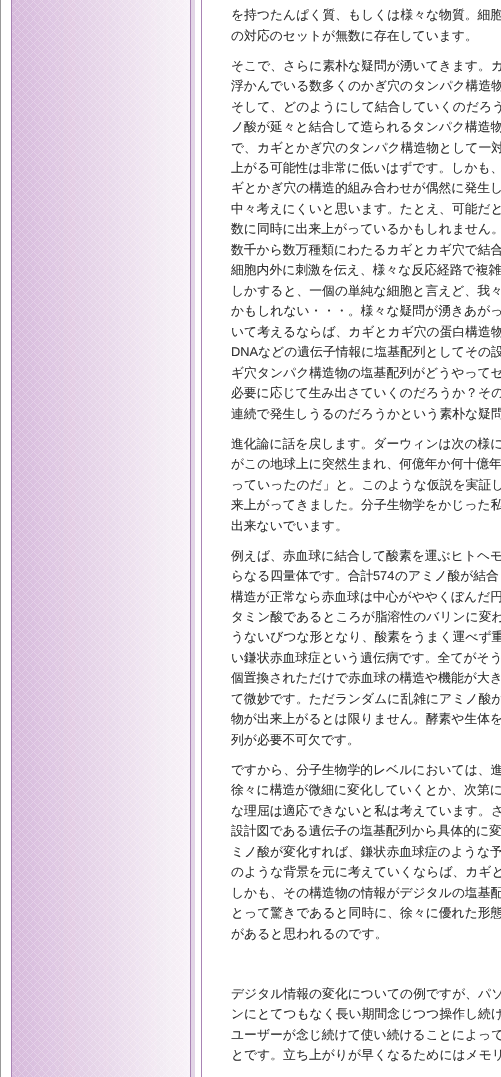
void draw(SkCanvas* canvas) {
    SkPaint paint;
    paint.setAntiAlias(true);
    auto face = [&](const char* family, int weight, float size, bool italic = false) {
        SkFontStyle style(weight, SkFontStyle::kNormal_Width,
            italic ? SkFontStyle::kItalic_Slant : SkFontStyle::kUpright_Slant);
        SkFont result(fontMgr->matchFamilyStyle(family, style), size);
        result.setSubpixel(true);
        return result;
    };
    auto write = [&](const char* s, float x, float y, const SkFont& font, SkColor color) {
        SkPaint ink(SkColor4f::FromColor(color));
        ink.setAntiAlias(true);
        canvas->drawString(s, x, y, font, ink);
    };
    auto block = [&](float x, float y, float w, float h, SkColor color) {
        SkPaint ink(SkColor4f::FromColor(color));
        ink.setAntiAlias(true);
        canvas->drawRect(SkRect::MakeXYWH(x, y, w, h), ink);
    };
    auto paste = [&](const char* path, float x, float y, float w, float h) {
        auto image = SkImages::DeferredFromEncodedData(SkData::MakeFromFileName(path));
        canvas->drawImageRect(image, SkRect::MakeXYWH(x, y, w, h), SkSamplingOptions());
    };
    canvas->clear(SK_ColorWHITE);
    paste("pic1.png", 11, 0, 191, 1077);
    block(0, 0, 1, 1077, SkColorSetRGB(153, 153, 153));
    auto kFont1 = face("WenQuanYi Zen Hei", 500, 12.8f);
    write("を持つたんぱく質、もしくは様々な物質。細胞", 231, 19, kFont1, SkColorSetRGB(51, 51, 51));
    write("の対応のセットが無数に存在しています。", 231, 40, kFont1, SkColorSetRGB(51, 51, 51));
    write("そこで、さらに素朴な疑問が湧いてきます。カ", 231, 70, kFont1, SkColorSetRGB(51, 51, 51));
    write("浮かんでいる数多くのかぎ穴のタンパク構造物", 231, 90, kFont1, SkColorSetRGB(51, 51, 51));
    write("そして、どのようにして結合していくのだろう", 231, 111, kFont1, SkColorSetRGB(51, 51, 51));
    write("ノ酸が延々と結合して造られるタンパク構造物", 231, 131, kFont1, SkColorSetRGB(51, 51, 51));
    write("で、カギとかぎ穴のタンパク構造物として一対", 231, 152, kFont1, SkColorSetRGB(51, 51, 51));
    write("上がる可能性は非常に低いはずです。しかも、", 231, 172, kFont1, SkColorSetRGB(51, 51, 51));
    write("ギとかぎ穴の構造的組み合わせが偶然に発生し", 231, 192, kFont1, SkColorSetRGB(51, 51, 51));
    write("中々考えにくいと思います。たとえ、可能だと", 231, 213, kFont1, SkColorSetRGB(51, 51, 51));
    write("数に同時に出来上がっているかもしれません。", 231, 233, kFont1, SkColorSetRGB(51, 51, 51));
    write("数千から数万種類にわたるカギとカギ穴で結合", 231, 254, kFont1, SkColorSetRGB(51, 51, 51));
    write("細胞内外に刺激を伝え、様々な反応経路で複雑", 231, 274, kFont1, SkColorSetRGB(51, 51, 51));
    write("しかすると、一個の単純な細胞と言えど、我々", 231, 295, kFont1, SkColorSetRGB(51, 51, 51));
    write("かもしれない・・・。様々な疑問が湧きあがっ", 231, 315, kFont1, SkColorSetRGB(51, 51, 51));
    write("いて考えるならば、カギとカギ穴の蛋白構造物", 231, 336, kFont1, SkColorSetRGB(51, 51, 51));
    auto kFont2 = face("Liberation Sans", 400, 12.8f);
    write("DNA", 231, 356, kFont2, SkColorSetRGB(51, 51, 51));
    write("などの遺伝子情報に塩基配列としてその設", 258, 356, kFont1, SkColorSetRGB(51, 51, 51));
    write("ギ穴タンパク構造物の塩基配列がどうやってセ", 231, 377, kFont1, SkColorSetRGB(51, 51, 51));
    write("必要に応じて生み出さていくのだろうか？その", 231, 397, kFont1, SkColorSetRGB(51, 51, 51));
    write("連続で発生しうるのだろうかという素朴な疑問", 231, 418, kFont1, SkColorSetRGB(51, 51, 51));
    write("進化論に話を戻します。ダーウィンは次の様に", 231, 448, kFont1, SkColorSetRGB(51, 51, 51));
    write("がこの地球上に突然生まれ、何億年か何十億年", 231, 468, kFont1, SkColorSetRGB(51, 51, 51));
    write("っていったのだ」と。このような仮説を実証し", 231, 489, kFont1, SkColorSetRGB(51, 51, 51));
    write("来上がってきました。分子生物学をかじった私", 231, 509, kFont1, SkColorSetRGB(51, 51, 51));
    write("出来ないでいます。", 231, 530, kFont1, SkColorSetRGB(51, 51, 51));
    write("例えば、赤血球に結合して酸素を運ぶヒトヘモ", 231, 560, kFont1, SkColorSetRGB(51, 51, 51));
    write("らなる四量体です。合計", 231, 580, kFont1, SkColorSetRGB(51, 51, 51));
    write("574", 373, 580, kFont2, SkColorSetRGB(51, 51, 51));
    write("のアミノ酸が結合", 395, 580, kFont1, SkColorSetRGB(51, 51, 51));
    write("構造が正常なら赤血球は中心がややくぼんだ円", 231, 601, kFont1, SkColorSetRGB(51, 51, 51));
    write("タミン酸であるところが脂溶性のバリンに変わ", 231, 621, kFont1, SkColorSetRGB(51, 51, 51));
    write("うないびつな形となり、酸素をうまく運べず重", 231, 641, kFont1, SkColorSetRGB(51, 51, 51));
    write("い鎌状赤血球症という遺伝病です。全てがそう", 231, 662, kFont1, SkColorSetRGB(51, 51, 51));
    write("個置換されただけで赤血球の構造や機能が大き", 231, 682, kFont1, SkColorSetRGB(51, 51, 51));
    write("て微妙です。ただランダムに乱雑にアミノ酸が", 231, 703, kFont1, SkColorSetRGB(51, 51, 51));
    write("物が出来上がるとは限りません。酵素や生体を", 231, 723, kFont1, SkColorSetRGB(51, 51, 51));
    write("列が必要不可欠です。", 231, 744, kFont1, SkColorSetRGB(51, 51, 51));
    write("ですから、分子生物学的レベルにおいては、進", 231, 774, kFont1, SkColorSetRGB(51, 51, 51));
    write("徐々に構造が微細に変化していくとか、次第に", 231, 794, kFont1, SkColorSetRGB(51, 51, 51));
    write("な理屈は適応できないと私は考えています。さ", 231, 815, kFont1, SkColorSetRGB(51, 51, 51));
    write("設計図である遺伝子の塩基配列から具体的に変", 231, 835, kFont1, SkColorSetRGB(51, 51, 51));
    write("ミノ酸が変化すれば、鎌状赤血球症のような予", 231, 856, kFont1, SkColorSetRGB(51, 51, 51));
    write("のような背景を元に考えていくならば、カギと", 231, 876, kFont1, SkColorSetRGB(51, 51, 51));
    write("しかも、その構造物の情報がデジタルの塩基配", 231, 897, kFont1, SkColorSetRGB(51, 51, 51));
    write("とって驚きであると同時に、徐々に優れた形態", 231, 917, kFont1, SkColorSetRGB(51, 51, 51));
    write("があると思われるのです。", 231, 938, kFont1, SkColorSetRGB(51, 51, 51));
    write("デジタル情報の変化についての例ですが、パソ", 231, 998, kFont1, SkColorSetRGB(51, 51, 51));
    write("ンにとてつもなく長い期間念じつつ操作し続け", 231, 1018, kFont1, SkColorSetRGB(51, 51, 51));
    write("ユーザーが念じ続けて使い続けることによって", 231, 1039, kFont1, SkColorSetRGB(51, 51, 51));
    write("とです。立ち上がりが早くなるためにはメモリ", 231, 1059, kFont1, SkColorSetRGB(51, 51, 51));
}
